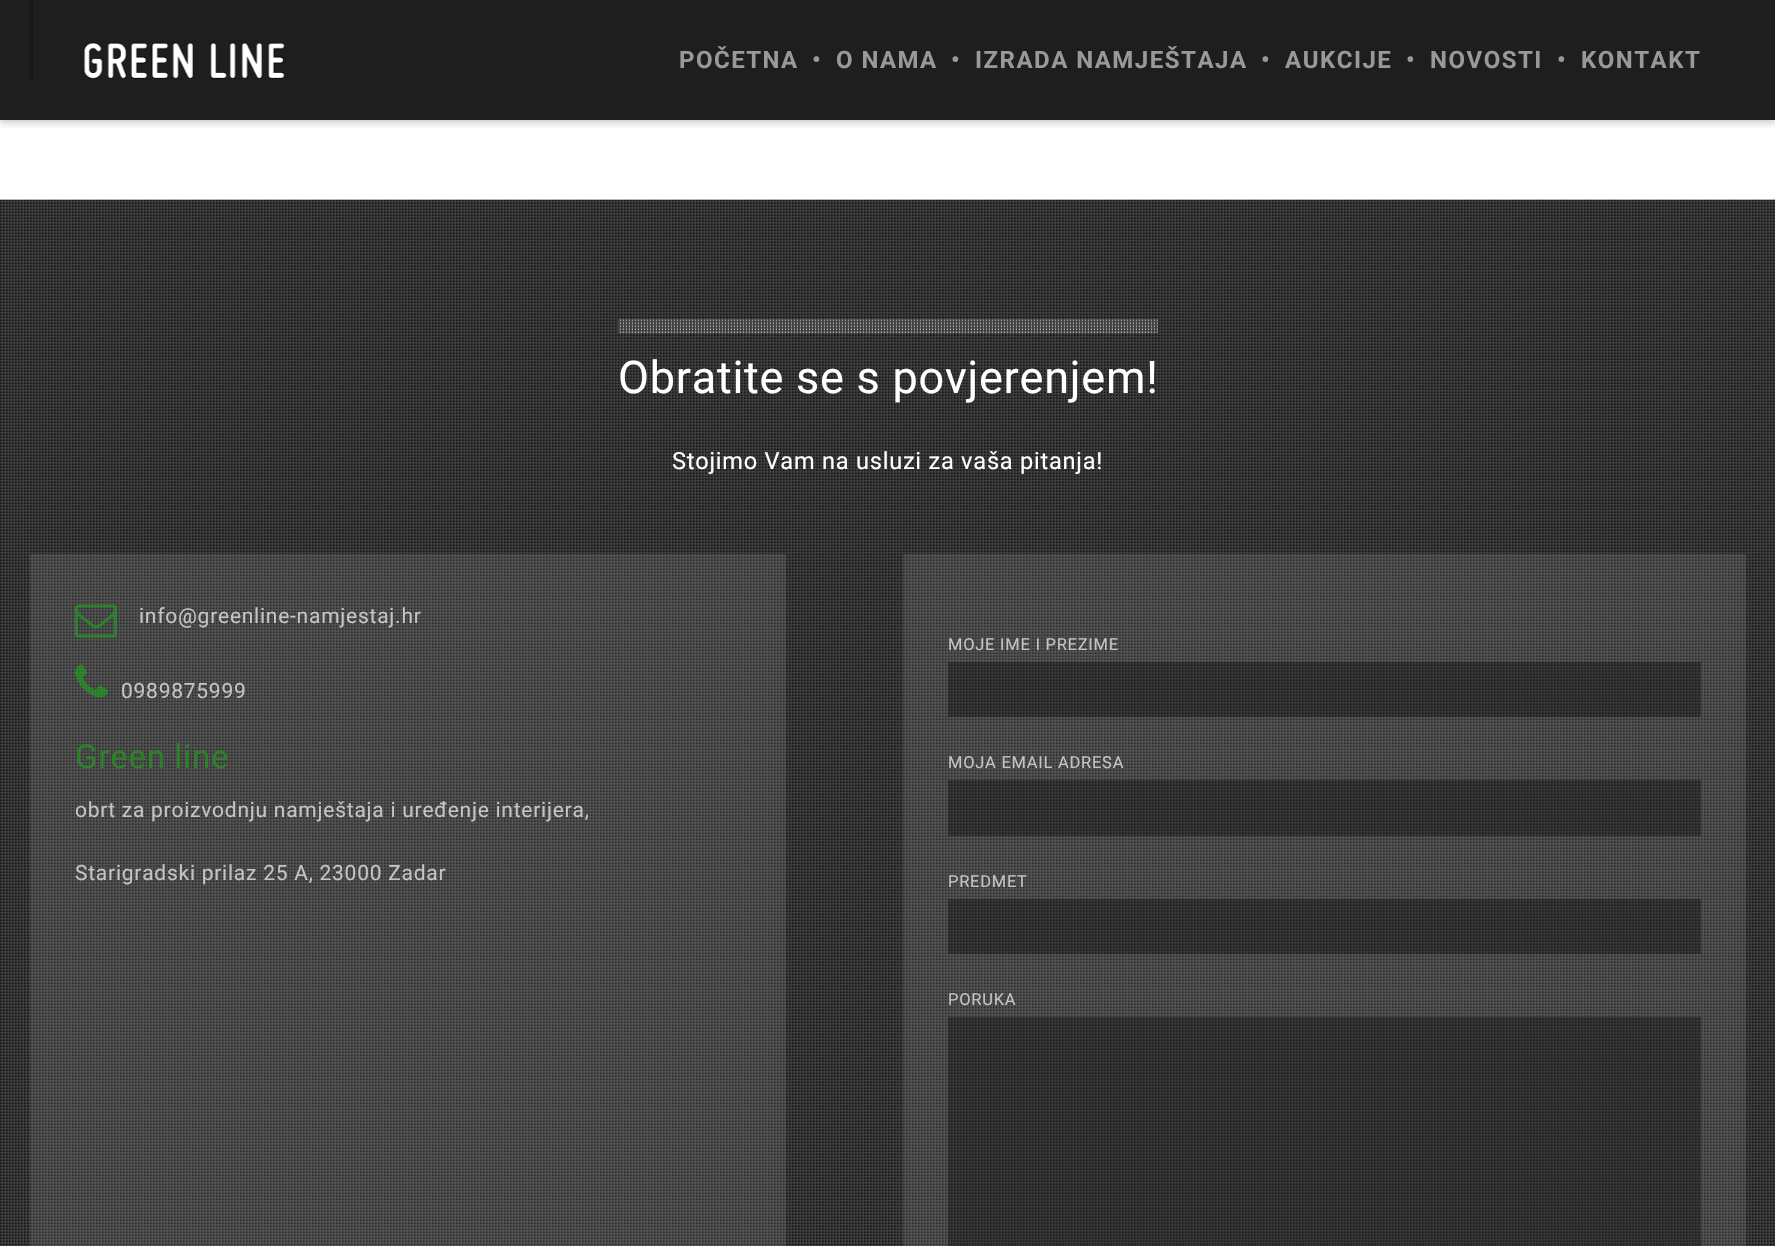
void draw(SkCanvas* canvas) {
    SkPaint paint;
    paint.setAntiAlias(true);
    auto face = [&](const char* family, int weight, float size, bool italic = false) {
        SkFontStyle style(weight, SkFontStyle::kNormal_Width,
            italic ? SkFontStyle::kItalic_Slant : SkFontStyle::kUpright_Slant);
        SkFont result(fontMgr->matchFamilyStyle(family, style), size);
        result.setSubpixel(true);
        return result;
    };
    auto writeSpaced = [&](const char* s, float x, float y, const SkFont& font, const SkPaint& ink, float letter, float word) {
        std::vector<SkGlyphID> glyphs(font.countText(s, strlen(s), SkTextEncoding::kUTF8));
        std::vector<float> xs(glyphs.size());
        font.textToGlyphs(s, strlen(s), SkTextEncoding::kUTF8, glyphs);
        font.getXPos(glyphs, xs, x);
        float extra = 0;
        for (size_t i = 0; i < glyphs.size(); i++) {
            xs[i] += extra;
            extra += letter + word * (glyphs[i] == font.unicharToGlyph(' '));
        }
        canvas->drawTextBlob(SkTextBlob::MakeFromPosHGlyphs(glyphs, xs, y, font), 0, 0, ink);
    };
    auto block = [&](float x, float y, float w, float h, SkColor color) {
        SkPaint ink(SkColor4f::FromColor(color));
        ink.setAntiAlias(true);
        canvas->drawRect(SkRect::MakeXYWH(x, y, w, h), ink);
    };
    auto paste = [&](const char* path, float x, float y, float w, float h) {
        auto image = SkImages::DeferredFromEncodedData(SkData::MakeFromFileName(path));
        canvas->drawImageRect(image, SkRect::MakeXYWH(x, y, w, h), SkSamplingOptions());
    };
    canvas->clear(SK_ColorWHITE);
    block(0, 0, 1775, 120, SkColorSetRGB(30, 30, 30));
    block(30, 0, 3, 80, SkColorSetRGB(19, 25, 19));
    canvas->save();
    canvas->clipRect(SkRect::MakeXYWH(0, 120, 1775, 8));
    paint.setColor(SkColorSetARGB(64, 0, 0, 0));
    paint.setMaskFilter(SkMaskFilter::MakeBlur(kNormal_SkBlurStyle, 4));
    canvas->drawRect(SkRect::MakeXYWH(0, 2, 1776, 120), paint);
    paint.setMaskFilter(nullptr);
    canvas->restore();
    paste("pic1.png", 83, 42, 202, 37);
    auto kFont1 = face("Roboto", 700, 24);
    paint.setColor(SkColorSetRGB(153, 153, 153));
    writeSpaced("POČETNA", 679, 68, kFont1, paint, 1.5f, 0);
    writeSpaced("•", 812, 68, kFont1, paint, 1.5f, 0);
    writeSpaced("O NAMA", 836, 68, kFont1, paint, 1.5f, 0);
    writeSpaced("•", 951, 68, kFont1, paint, 1.5f, 0);
    writeSpaced("IZRADA NAMJEŠTAJA", 975, 68, kFont1, paint, 1.5f, 0);
    writeSpaced("•", 1261, 68, kFont1, paint, 1.5f, 0);
    writeSpaced("AUKCIJE", 1285, 68, kFont1, paint, 1.5f, 0);
    writeSpaced("•", 1406, 68, kFont1, paint, 1.5f, 0);
    writeSpaced("NOVOSTI", 1430, 68, kFont1, paint, 1.5f, 0);
    writeSpaced("•", 1557, 68, kFont1, paint, 1.5f, 0);
    writeSpaced("KONTAKT", 1581, 68, kFont1, paint, 1.5f, 0);
    block(0, 200, 1775, 1046, SkColorSetRGB(118, 118, 118));
    paste("pic2.png", 0, 199, 1775, 1047);
    paste("pic3.png", 618, 319, 540, 14);
    auto kFont2 = face("Roboto", 400, 45);
    paint.setColor(SK_ColorWHITE);
    writeSpaced("Obratite se s povjerenjem!", 618, 393, kFont2, paint, 0.75f, 0);
    auto kFont3 = face("Roboto", 400, 23.6f);
    writeSpaced("Stojimo Vam na usluzi za vaša pitanja!", 672, 469, kFont3, paint, 0.75f, 0);
    block(30, 554, 756, 692, SkColorSetARGB(26, 255, 255, 255));
    paste("pic4.png", 75, 604, 42, 34);
    auto kFont4 = face("Roboto", 400, 21);
    paint.setColor(SkColorSetRGB(196, 196, 196));
    writeSpaced("info@greenline-namjestaj.hr", 139, 623, kFont4, paint, 0.75f, 0);
    paste("pic5.png", 75, 664, 33, 34);
    writeSpaced("0989875999", 121, 698, kFont4, paint, 0.75f, 0);
    auto kFont5 = face("Roboto", 400, 33);
    paint.setColor(SkColorSetRGB(44, 128, 42));
    writeSpaced("Green line", 75, 768, kFont5, paint, 0.75f, 0);
    paint.setColor(SkColorSetRGB(196, 196, 196));
    writeSpaced("obrt za proizvodnju namještaja i uređenje interijera,", 75, 817, kFont4, paint, 0.75f, 0);
    writeSpaced("Starigradski prilaz 25 A, 23000 Zadar", 75, 880, kFont4, paint, 0.75f, 0);
    block(903, 554, 843, 692, SkColorSetARGB(26, 255, 255, 255));
    auto kFont6 = face("Roboto", 400, 16.5f);
    writeSpaced("MOJE IME I PREZIME", 948, 650, kFont6, paint, 0.75f, 0);
    block(948, 662, 753, 55, SkColorSetARGB(87, 0, 0, 0));
    writeSpaced("MOJA EMAIL ADRESA", 948, 768, kFont6, paint, 0.75f, 0);
    block(948, 780, 753, 56, SkColorSetARGB(87, 0, 0, 0));
    writeSpaced("PREDMET", 948, 887, kFont6, paint, 0.75f, 0);
    block(948, 899, 753, 55, SkColorSetARGB(87, 0, 0, 0));
    writeSpaced("PORUKA", 948, 1005, kFont6, paint, 0.75f, 0);
    block(948, 1017, 753, 229, SkColorSetARGB(87, 0, 0, 0));
}
